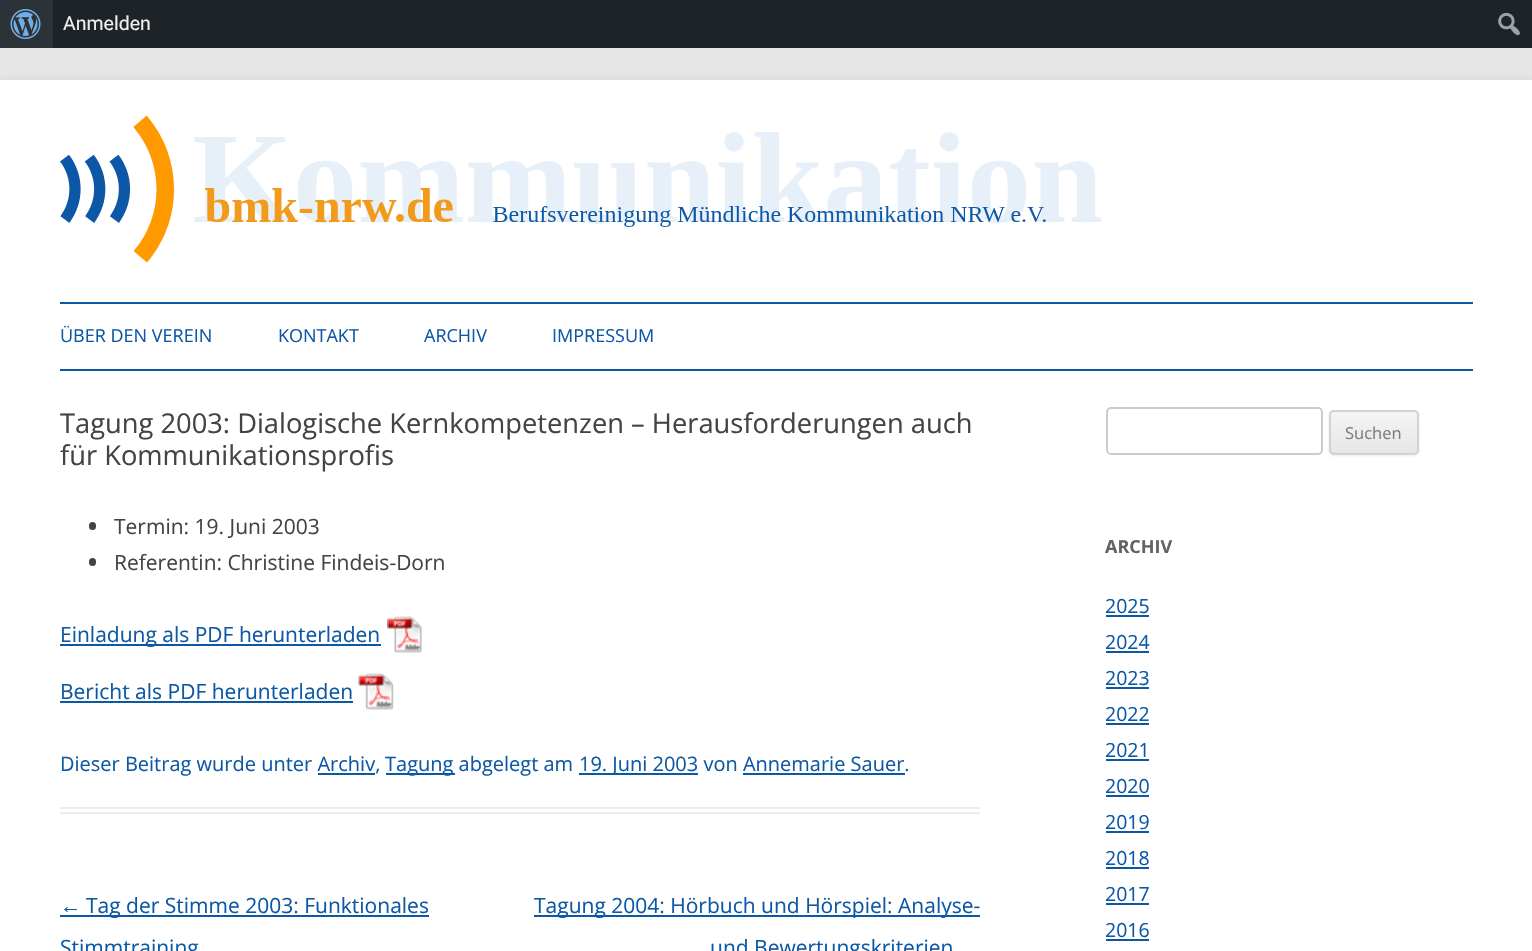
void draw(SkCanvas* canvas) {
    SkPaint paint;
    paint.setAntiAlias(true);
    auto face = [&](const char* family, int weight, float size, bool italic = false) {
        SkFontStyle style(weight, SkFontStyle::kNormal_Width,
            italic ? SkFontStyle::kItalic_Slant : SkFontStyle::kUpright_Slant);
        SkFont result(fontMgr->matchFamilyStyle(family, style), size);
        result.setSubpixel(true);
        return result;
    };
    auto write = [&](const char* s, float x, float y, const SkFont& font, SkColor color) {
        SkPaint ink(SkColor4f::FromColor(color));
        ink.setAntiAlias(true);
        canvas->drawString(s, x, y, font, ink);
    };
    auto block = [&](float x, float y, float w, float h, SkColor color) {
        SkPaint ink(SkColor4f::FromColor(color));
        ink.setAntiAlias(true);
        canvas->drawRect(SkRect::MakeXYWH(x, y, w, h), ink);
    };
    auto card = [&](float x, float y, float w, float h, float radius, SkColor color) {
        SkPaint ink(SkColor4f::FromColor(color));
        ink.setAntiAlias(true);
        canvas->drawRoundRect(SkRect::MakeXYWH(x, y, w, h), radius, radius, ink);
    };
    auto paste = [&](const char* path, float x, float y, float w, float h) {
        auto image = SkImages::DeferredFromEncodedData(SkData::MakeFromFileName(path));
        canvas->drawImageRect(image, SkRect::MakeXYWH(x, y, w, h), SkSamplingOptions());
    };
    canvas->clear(SkColorSetRGB(230, 230, 230));
    block(53, 0, 1479, 48, SkColorSetRGB(29, 35, 39));
    block(0, 0, 53, 48, SkColorSetRGB(44, 51, 56));
    paste("pic1.png", 10, 9, 31, 30);
    auto kFont1 = face("Roboto", 400, 19.5f);
    write("Anmelden", 63, 30, kFont1, SkColorSetRGB(240, 240, 241));
    paste("pic2.png", 1498, 12, 22, 24);
    paint.setColor(SkColorSetARGB(77, 100, 100, 100));
    paint.setMaskFilter(SkMaskFilter::MakeBlur(kNormal_SkBlurStyle, 4.5f));
    canvas->drawRect(SkRect::MakeXYWH(0, 83, 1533, 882), paint);
    paint.setMaskFilter(nullptr);
    block(0, 80, 1532, 871, SK_ColorWHITE);
    paste("pic3.png", 60, 116, 1041, 147);
    block(60, 302, 1413, 2, SkColorSetRGB(13, 88, 166));
    block(60, 369, 1413, 2, SkColorSetRGB(13, 88, 166));
    auto kFont2 = face("Open Sans", 400, 18);
    write("ÜBER DEN VEREIN", 60, 342, kFont2, SkColorSetRGB(13, 88, 166));
    write("KONTAKT", 278, 342, kFont2, SkColorSetRGB(13, 88, 166));
    write("ARCHIV", 424, 342, kFont2, SkColorSetRGB(13, 88, 166));
    write("IMPRESSUM", 552, 342, kFont2, SkColorSetRGB(13, 88, 166));
    block(60, 807, 920, 2, SkColorSetRGB(237, 237, 237));
    block(60, 812, 920, 2, SkColorSetRGB(237, 237, 237));
    auto kFont3 = face("Open Sans", 400, 27.3f);
    write("Tagung 2003: Dialogische Kernkompetenzen – Herausforderungen auch", 60, 433, kFont3, SkColorSetRGB(68, 68, 68));
    write("für Kommunikationsprofis", 60, 465, kFont3, SkColorSetRGB(68, 68, 68));
    card(89, 522, 7, 8, 3.5f, SkColorSetRGB(68, 68, 68));
    auto kFont4 = face("Open Sans", 400, 21);
    write("Termin: 19. Juni 2003", 114, 534, kFont4, SkColorSetRGB(68, 68, 68));
    card(89, 558, 7, 8, 3.5f, SkColorSetRGB(68, 68, 68));
    write("Referentin: Christine Findeis-Dorn", 114, 570, kFont4, SkColorSetRGB(68, 68, 68));
    paste("pic4.png", 387, 616, 35, 37);
    block(60, 644, 321, 2, SkColorSetRGB(13, 88, 166));
    write("Einladung als PDF herunterladen", 60, 642, kFont4, SkColorSetRGB(13, 88, 166));
    paste("pic5.png", 358, 673, 36, 37);
    write("Bericht als PDF herunterladen", 60, 699, kFont4, SkColorSetRGB(13, 88, 166));
    block(60, 701, 293, 2, SkColorSetRGB(13, 88, 166));
    auto kFont5 = face("Open Sans", 400, 20);
    write("Dieser Beitrag wurde unter Archiv,", 60, 771, kFont5, SkColorSetRGB(13, 88, 166));
    block(386, 773, 69, 2, SkColorSetRGB(13, 88, 166));
    write("Tagung abgelegt am", 385, 771, kFont5, SkColorSetRGB(13, 88, 166));
    block(579, 773, 119, 2, SkColorSetRGB(13, 88, 166));
    write("19. Juni 2003 von Annemarie Sauer.", 579, 771, kFont5, SkColorSetRGB(13, 88, 166));
    block(318, 773, 57, 2, SkColorSetRGB(13, 88, 166));
    block(743, 773, 162, 2, SkColorSetRGB(13, 88, 166));
    auto kFont6 = face("Liberation Sans", 400, 21);
    write("←", 60, 913, kFont6, SkColorSetRGB(13, 88, 166));
    block(60, 915, 369, 2, SkColorSetRGB(13, 88, 166));
    write("Tag der Stimme 2003: Funktionales", 86, 913, kFont4, SkColorSetRGB(13, 88, 166));
    write("Stimmtraining", 60, 955, kFont4, SkColorSetRGB(13, 88, 166));
    block(534, 915, 446, 2, SkColorSetRGB(13, 88, 166));
    write("Tagung 2004: Hörbuch und Hörspiel: Analyse-", 534, 913, kFont4, SkColorSetRGB(13, 88, 166));
    write("und Bewertungskriterien", 710, 955, kFont4, SkColorSetRGB(13, 88, 166));
    paint.setStyle(SkPaint::kStroke_Style);
    paint.setStrokeWidth(2);
    paint.setColor(SkColorSetRGB(204, 204, 204));
    canvas->drawRoundRect(SkRect::MakeXYWH(1107, 408, 215, 46), 4, 4, paint);
    paint.setStyle(SkPaint::kFill_Style);
    paint.setColor(SkColorSetARGB(26, 64, 64, 64));
    paint.setMaskFilter(SkMaskFilter::MakeBlur(kNormal_SkBlurStyle, 1.5f));
    canvas->drawRoundRect(SkRect::MakeXYWH(1329, 411, 90, 45), 5, 5, paint);
    paint.setMaskFilter(nullptr);
    canvas->save();
    canvas->clipPath(SkPathBuilder().moveTo(1334, 410).lineTo(1414, 410).cubicTo(1417, 410, 1419, 412, 1419, 415).lineTo(1419, 450).cubicTo(1419, 453, 1417, 455, 1414, 455).lineTo(1334, 455).cubicTo(1331, 455, 1329, 453, 1329, 450).lineTo(1329, 415).cubicTo(1329, 412, 1331, 410, 1334, 410).close().detach(), true);
    {
        const SkColor colors[] = {SkColorSetRGB(244, 244, 244), SkColorSetRGB(230, 230, 230)};
        const float stops[] = {0, 1};
        const SkPoint ends[] = {{1374, 411}, {1374, 453}};
        paint.setShader(SkGradientShader::MakeLinear(ends, colors, stops, 2, SkTileMode::kClamp));
        paint.setAlpha(255);
    }
    canvas->drawRect(SkRect::MakeXYWH(1329, 411, 90, 42), paint);
    canvas->restore();
    paint.setStyle(SkPaint::kStroke_Style);
    paint.setShader(nullptr);
    paint.setColor(SkColorSetRGB(210, 210, 210));
    canvas->drawRoundRect(SkRect::MakeXYWH(1330, 411, 88, 43), 4, 4, paint);
    auto kFont7 = face("Open Sans", 400, 16.5f);
    write("Suchen", 1345, 439, kFont7, SkColorSetRGB(124, 124, 124));
    auto kFont8 = face("Open Sans", 700, 18);
    write("ARCHIV", 1105, 553, kFont8, SkColorSetRGB(99, 99, 99));
    auto kFont9 = face("Open Sans", 400, 19.5f);
    write("2025", 1105, 613, kFont9, SkColorSetRGB(13, 88, 166));
    block(1106, 615, 43, 2, SkColorSetRGB(13, 88, 166));
    write("2024", 1105, 649, kFont9, SkColorSetRGB(13, 88, 166));
    block(1106, 651, 43, 2, SkColorSetRGB(13, 88, 166));
    write("2023", 1105, 685, kFont9, SkColorSetRGB(13, 88, 166));
    block(1106, 687, 43, 2, SkColorSetRGB(13, 88, 166));
    write("2022", 1105, 721, kFont9, SkColorSetRGB(13, 88, 166));
    block(1106, 723, 43, 2, SkColorSetRGB(13, 88, 166));
    write("2021", 1105, 757, kFont9, SkColorSetRGB(13, 88, 166));
    block(1106, 759, 43, 2, SkColorSetRGB(13, 88, 166));
    write("2020", 1105, 793, kFont9, SkColorSetRGB(13, 88, 166));
    block(1106, 795, 43, 2, SkColorSetRGB(13, 88, 166));
    write("2019", 1105, 829, kFont9, SkColorSetRGB(13, 88, 166));
    block(1106, 831, 43, 2, SkColorSetRGB(13, 88, 166));
    write("2018", 1105, 865, kFont9, SkColorSetRGB(13, 88, 166));
    block(1106, 867, 43, 2, SkColorSetRGB(13, 88, 166));
    write("2017", 1105, 901, kFont9, SkColorSetRGB(13, 88, 166));
    block(1106, 903, 43, 2, SkColorSetRGB(13, 88, 166));
    write("2016", 1105, 937, kFont9, SkColorSetRGB(13, 88, 166));
    block(1106, 939, 43, 2, SkColorSetRGB(13, 88, 166));
}
